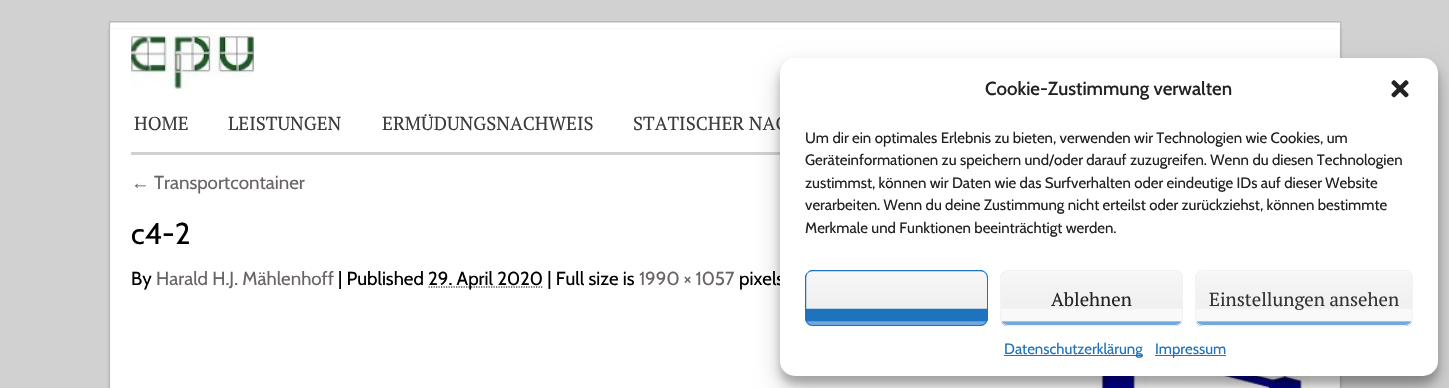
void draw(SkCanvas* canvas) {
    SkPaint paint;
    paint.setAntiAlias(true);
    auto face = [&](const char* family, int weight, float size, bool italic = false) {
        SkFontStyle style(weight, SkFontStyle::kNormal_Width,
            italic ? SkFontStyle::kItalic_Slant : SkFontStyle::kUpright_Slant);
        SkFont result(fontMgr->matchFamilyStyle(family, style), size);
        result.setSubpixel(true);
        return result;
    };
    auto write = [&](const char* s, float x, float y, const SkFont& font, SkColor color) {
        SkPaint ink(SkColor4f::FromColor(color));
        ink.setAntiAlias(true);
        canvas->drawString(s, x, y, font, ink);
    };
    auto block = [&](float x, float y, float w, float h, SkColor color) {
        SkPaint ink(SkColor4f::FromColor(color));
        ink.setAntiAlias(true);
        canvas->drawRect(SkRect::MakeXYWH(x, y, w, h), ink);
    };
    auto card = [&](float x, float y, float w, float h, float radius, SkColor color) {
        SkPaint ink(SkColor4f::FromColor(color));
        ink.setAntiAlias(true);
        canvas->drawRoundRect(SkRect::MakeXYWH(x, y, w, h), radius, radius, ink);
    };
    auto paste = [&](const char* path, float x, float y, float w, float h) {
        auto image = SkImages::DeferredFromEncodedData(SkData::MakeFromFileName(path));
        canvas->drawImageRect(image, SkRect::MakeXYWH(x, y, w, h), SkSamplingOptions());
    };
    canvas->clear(SkColorSetRGB(209, 209, 209));
    paste("pic1.png", 108, 21, 1234, 8);
    paste("pic2.png", 107, 28, 1236, 360);
    paste("pic3.png", 131, 32, 123, 57);
    block(131, 152, 649, 3, SkColorSetRGB(209, 209, 209));
    auto kFont1 = face("PT Serif", 400, 18.75f);
    write("HOME", 134, 130, kFont1, SkColorSetRGB(59, 60, 60));
    write("LEISTUNGEN", 228, 130, kFont1, SkColorSetRGB(59, 60, 60));
    write("ERMÜDUNGSNACHWEIS", 382, 130, kFont1, SkColorSetRGB(59, 60, 60));
    write("STATISCHER NAC", 633, 130, kFont1, SkColorSetRGB(59, 60, 60));
    auto kFont2 = face("Liberation Sans", 400, 18.75f);
    write("←", 131, 189, kFont2, SkColorSetRGB(106, 101, 101));
    auto kFont3 = face("Cabin", 400, 18.75f);
    write("Transportcontainer", 154, 189, kFont3, SkColorSetRGB(106, 101, 101));
    auto kFont4 = face("Cabin", 400, 30);
    write("c4-2", 131, 244, kFont4, SK_ColorBLACK);
    write("By", 131, 285, kFont3, SK_ColorBLACK);
    write("Harald H.J. Mählenhoff", 156, 285, kFont3, SkColorSetRGB(106, 101, 101));
    write("| Published", 338, 285, kFont3, SK_ColorBLACK);
    paint.setStyle(SkPaint::kStroke_Style);
    paint.setStrokeWidth(1.2f);
    paint.setColor(SK_ColorBLACK);
    paint.setPathEffect(SkDashPathEffect::Make({{1.25f, 1.25f}}, 0));
    canvas->drawPath(SkPathBuilder().moveTo(428.5f, 287).lineTo(543.5f, 287).detach(), paint);
    paint.setPathEffect(nullptr);
    write("29. April 2020 | Full size is", 428, 285, kFont3, SK_ColorBLACK);
    write("1990 × 1057", 639, 285, kFont3, SkColorSetRGB(106, 101, 101));
    write("pixels", 739, 285, kFont3, SK_ColorBLACK);
    paste("pic4.png", 1096, 376, 213, 12);
    paint.setStyle(SkPaint::kFill_Style);
    paint.setColor(SkColorSetARGB(59, 0, 0, 0));
    paint.setMaskFilter(SkMaskFilter::MakeBlur(kNormal_SkBlurStyle, 4));
    canvas->drawRoundRect(SkRect::MakeXYWH(780, 65, 658, 319), 15, 15, paint);
    paint.setMaskFilter(nullptr);
    paint.setColor(SkColorSetARGB(48, 0, 0, 0));
    paint.setMaskFilter(SkMaskFilter::MakeBlur(kNormal_SkBlurStyle, 12.5f));
    canvas->drawRoundRect(SkRect::MakeXYWH(780, 70, 658, 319), 15, 15, paint);
    paint.setMaskFilter(nullptr);
    card(780, 58, 658, 318, 15, SK_ColorWHITE);
    auto kFont5 = face("Cabin", 500, 18.75f);
    write("Cookie-Zustimmung verwalten", 985, 95, kFont5, SkColorSetRGB(34, 34, 34));
    paste("pic5.png", 1391, 80, 18, 18);
    auto kFont6 = face("Cabin", 400, 15);
    write("Um dir ein optimales Erlebnis zu bieten, verwenden wir Technologien wie Cookies, um", 805, 143, kFont6, SkColorSetRGB(34, 34, 34));
    write("Geräteinformationen zu speichern und/oder darauf zuzugreifen. Wenn du diesen Technologien", 805, 165, kFont6, SkColorSetRGB(34, 34, 34));
    write("zustimmst, können wir Daten wie das Surfverhalten oder eindeutige IDs auf dieser Website", 805, 188, kFont6, SkColorSetRGB(34, 34, 34));
    write("verarbeiten. Wenn du deine Zustimmung nicht erteilst oder zurückziehst, können bestimmte", 805, 210, kFont6, SkColorSetRGB(34, 34, 34));
    write("Merkmale und Funktionen beeinträchtigt werden.", 805, 233, kFont6, SkColorSetRGB(34, 34, 34));
    card(805, 270, 183, 56, 8, SkColorSetRGB(30, 115, 190));
    paste("pic6.png", 806, 271, 182, 56);
    paint.setStyle(SkPaint::kStroke_Style);
    paint.setStrokeWidth(1);
    paint.setColor(SkColorSetRGB(30, 115, 190));
    canvas->drawRoundRect(SkRect::MakeXYWH(805.5f, 270.5f, 182, 55), 7.5f, 7.5f, paint);
    card(1000, 270, 183, 56, 8, SkColorSetRGB(249, 249, 249));
    paste("pic7.png", 1001, 272, 181, 55);
    paint.setColor(SkColorSetRGB(242, 242, 242));
    canvas->drawRoundRect(SkRect::MakeXYWH(1000.5f, 270.5f, 182, 55), 7.5f, 7.5f, paint);
    write("Ablehnen", 1051, 306, kFont1, SkColorSetRGB(34, 34, 34));
    card(1195, 270, 218, 56, 8, SkColorSetRGB(249, 249, 249));
    paste("pic8.png", 1196, 272, 216, 55);
    canvas->drawRoundRect(SkRect::MakeXYWH(1195.5f, 270.5f, 217, 55), 7.5f, 7.5f, paint);
    write("Einstellungen ansehen", 1209, 306, kFont1, SkColorSetRGB(51, 51, 51));
    block(1004, 355, 139, 1, SkColorSetRGB(30, 115, 190));
    write("Datenschutzerklärung", 1004, 354, kFont6, SkColorSetRGB(30, 115, 190));
    block(1155, 355, 71, 1, SkColorSetRGB(30, 115, 190));
    write("Impressum", 1155, 354, kFont6, SkColorSetRGB(30, 115, 190));
}
